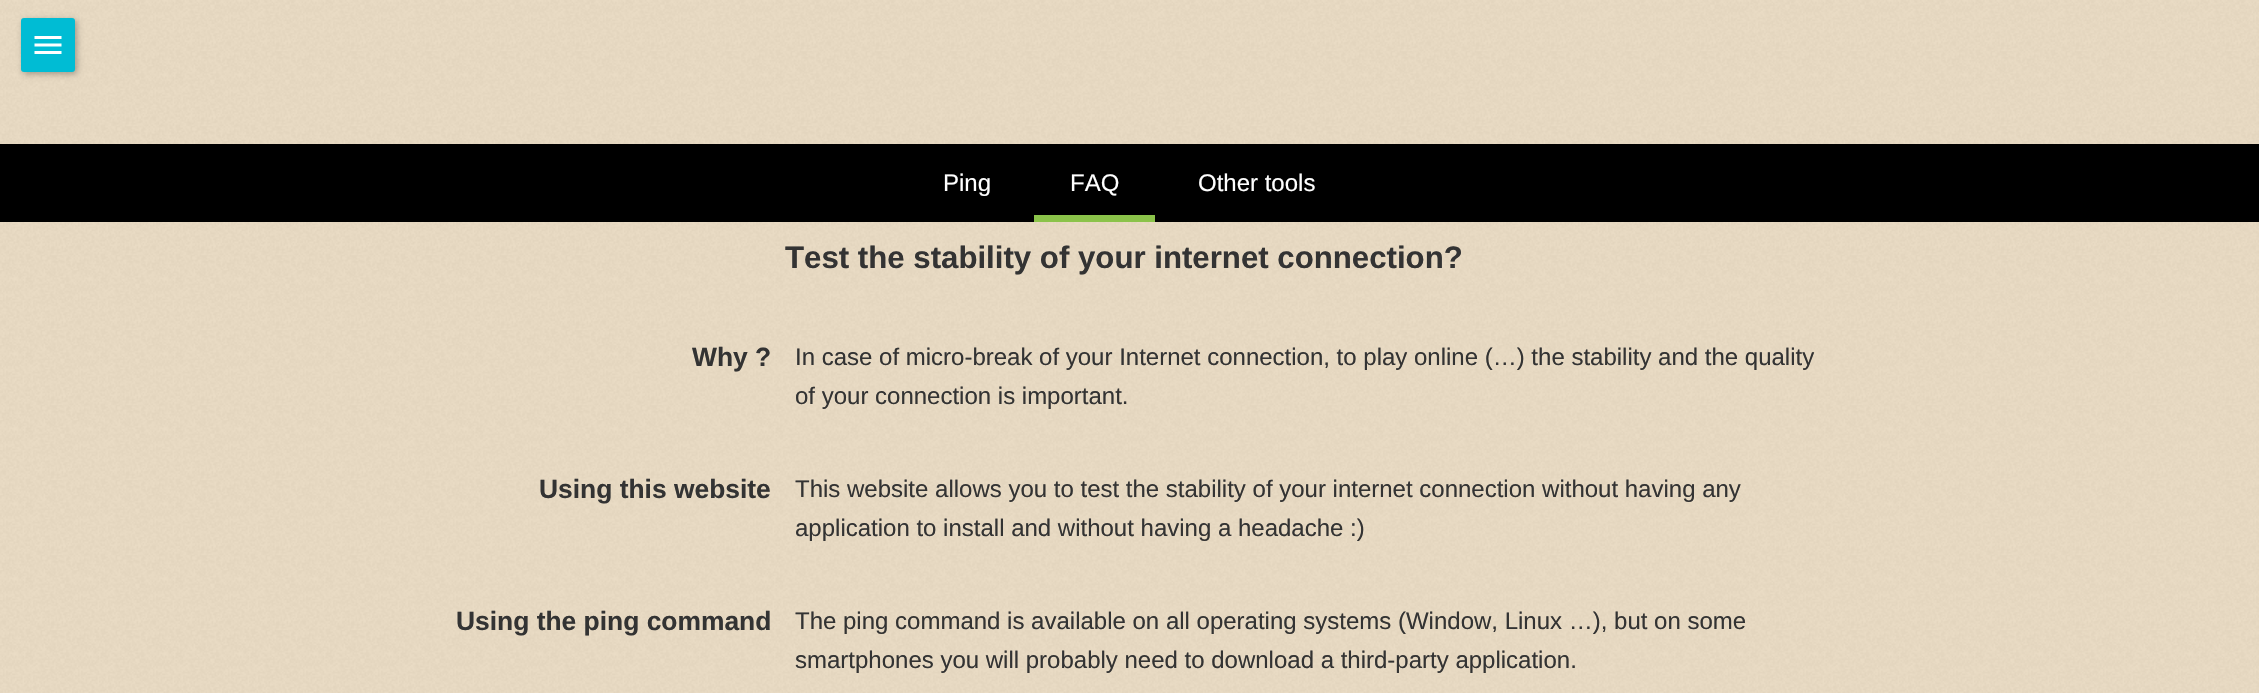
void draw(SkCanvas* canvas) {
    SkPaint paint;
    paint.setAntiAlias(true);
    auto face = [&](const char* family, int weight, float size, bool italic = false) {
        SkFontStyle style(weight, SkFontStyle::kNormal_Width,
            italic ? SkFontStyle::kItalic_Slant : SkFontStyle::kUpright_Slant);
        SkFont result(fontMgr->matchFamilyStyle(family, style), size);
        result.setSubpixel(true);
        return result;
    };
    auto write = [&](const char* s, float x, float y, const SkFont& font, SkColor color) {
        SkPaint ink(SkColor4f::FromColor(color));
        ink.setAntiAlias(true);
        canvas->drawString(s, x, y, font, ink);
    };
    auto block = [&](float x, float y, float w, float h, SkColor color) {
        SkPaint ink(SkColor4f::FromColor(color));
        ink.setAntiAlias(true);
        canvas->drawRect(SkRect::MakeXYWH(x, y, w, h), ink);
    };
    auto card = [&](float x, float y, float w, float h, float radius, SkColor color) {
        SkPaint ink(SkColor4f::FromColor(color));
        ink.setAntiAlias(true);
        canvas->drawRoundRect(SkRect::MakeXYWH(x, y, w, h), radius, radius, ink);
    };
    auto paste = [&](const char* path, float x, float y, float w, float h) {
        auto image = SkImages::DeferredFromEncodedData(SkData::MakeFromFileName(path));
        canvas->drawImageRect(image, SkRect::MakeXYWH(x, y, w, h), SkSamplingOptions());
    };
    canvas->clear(SkColorSetRGB(234, 219, 196));
    paste("pic1.png", 0, 0, 2259, 144);
    paint.setColor(SkColorSetARGB(77, 0, 0, 0));
    paint.setMaskFilter(SkMaskFilter::MakeBlur(kNormal_SkBlurStyle, 3));
    canvas->drawRoundRect(SkRect::MakeXYWH(23, 20, 54, 54), 3, 3, paint);
    paint.setMaskFilter(nullptr);
    card(21, 18, 54, 54, 3, SkColorSetRGB(0, 188, 212));
    paste("pic2.png", 34, 36, 28, 18);
    paste("pic3.png", 0, 222, 2259, 471);
    block(0, 144, 2259, 78, SK_ColorBLACK);
    auto kFont1 = face("Liberation Sans", 400, 24);
    write("Ping", 943, 191, kFont1, SK_ColorWHITE);
    block(1034, 215, 121, 7, SkColorSetRGB(139, 195, 74));
    write("FAQ", 1070, 191, kFont1, SK_ColorWHITE);
    write("Other tools", 1198, 191, kFont1, SK_ColorWHITE);
    auto kFont2 = face("Liberation Sans", 700, 31.2f);
    write("Test the stability of your internet connection?", 785, 268, kFont2, SkColorSetRGB(51, 51, 51));
    auto kFont3 = face("Liberation Sans", 700, 26.4f);
    write("Why ?", 692, 366, kFont3, SkColorSetRGB(51, 51, 51));
    write("In case of micro-break of your Internet connection, to play online (…) the stability and the quality", 795, 365, kFont1, SkColorSetRGB(51, 51, 51));
    write("of your connection is important.", 795, 404, kFont1, SkColorSetRGB(51, 51, 51));
    write("Using this website", 539, 498, kFont3, SkColorSetRGB(51, 51, 51));
    write("This website allows you to test the stability of your internet connection without having any", 795, 497, kFont1, SkColorSetRGB(51, 51, 51));
    write("application to install and without having a headache :)", 795, 536, kFont1, SkColorSetRGB(51, 51, 51));
    write("Using the ping command", 456, 630, kFont3, SkColorSetRGB(51, 51, 51));
    write("The ping command is available on all operating systems (Window, Linux …), but on some", 795, 629, kFont1, SkColorSetRGB(51, 51, 51));
    write("smartphones you will probably need to download a third-party application.", 795, 668, kFont1, SkColorSetRGB(51, 51, 51));
}
